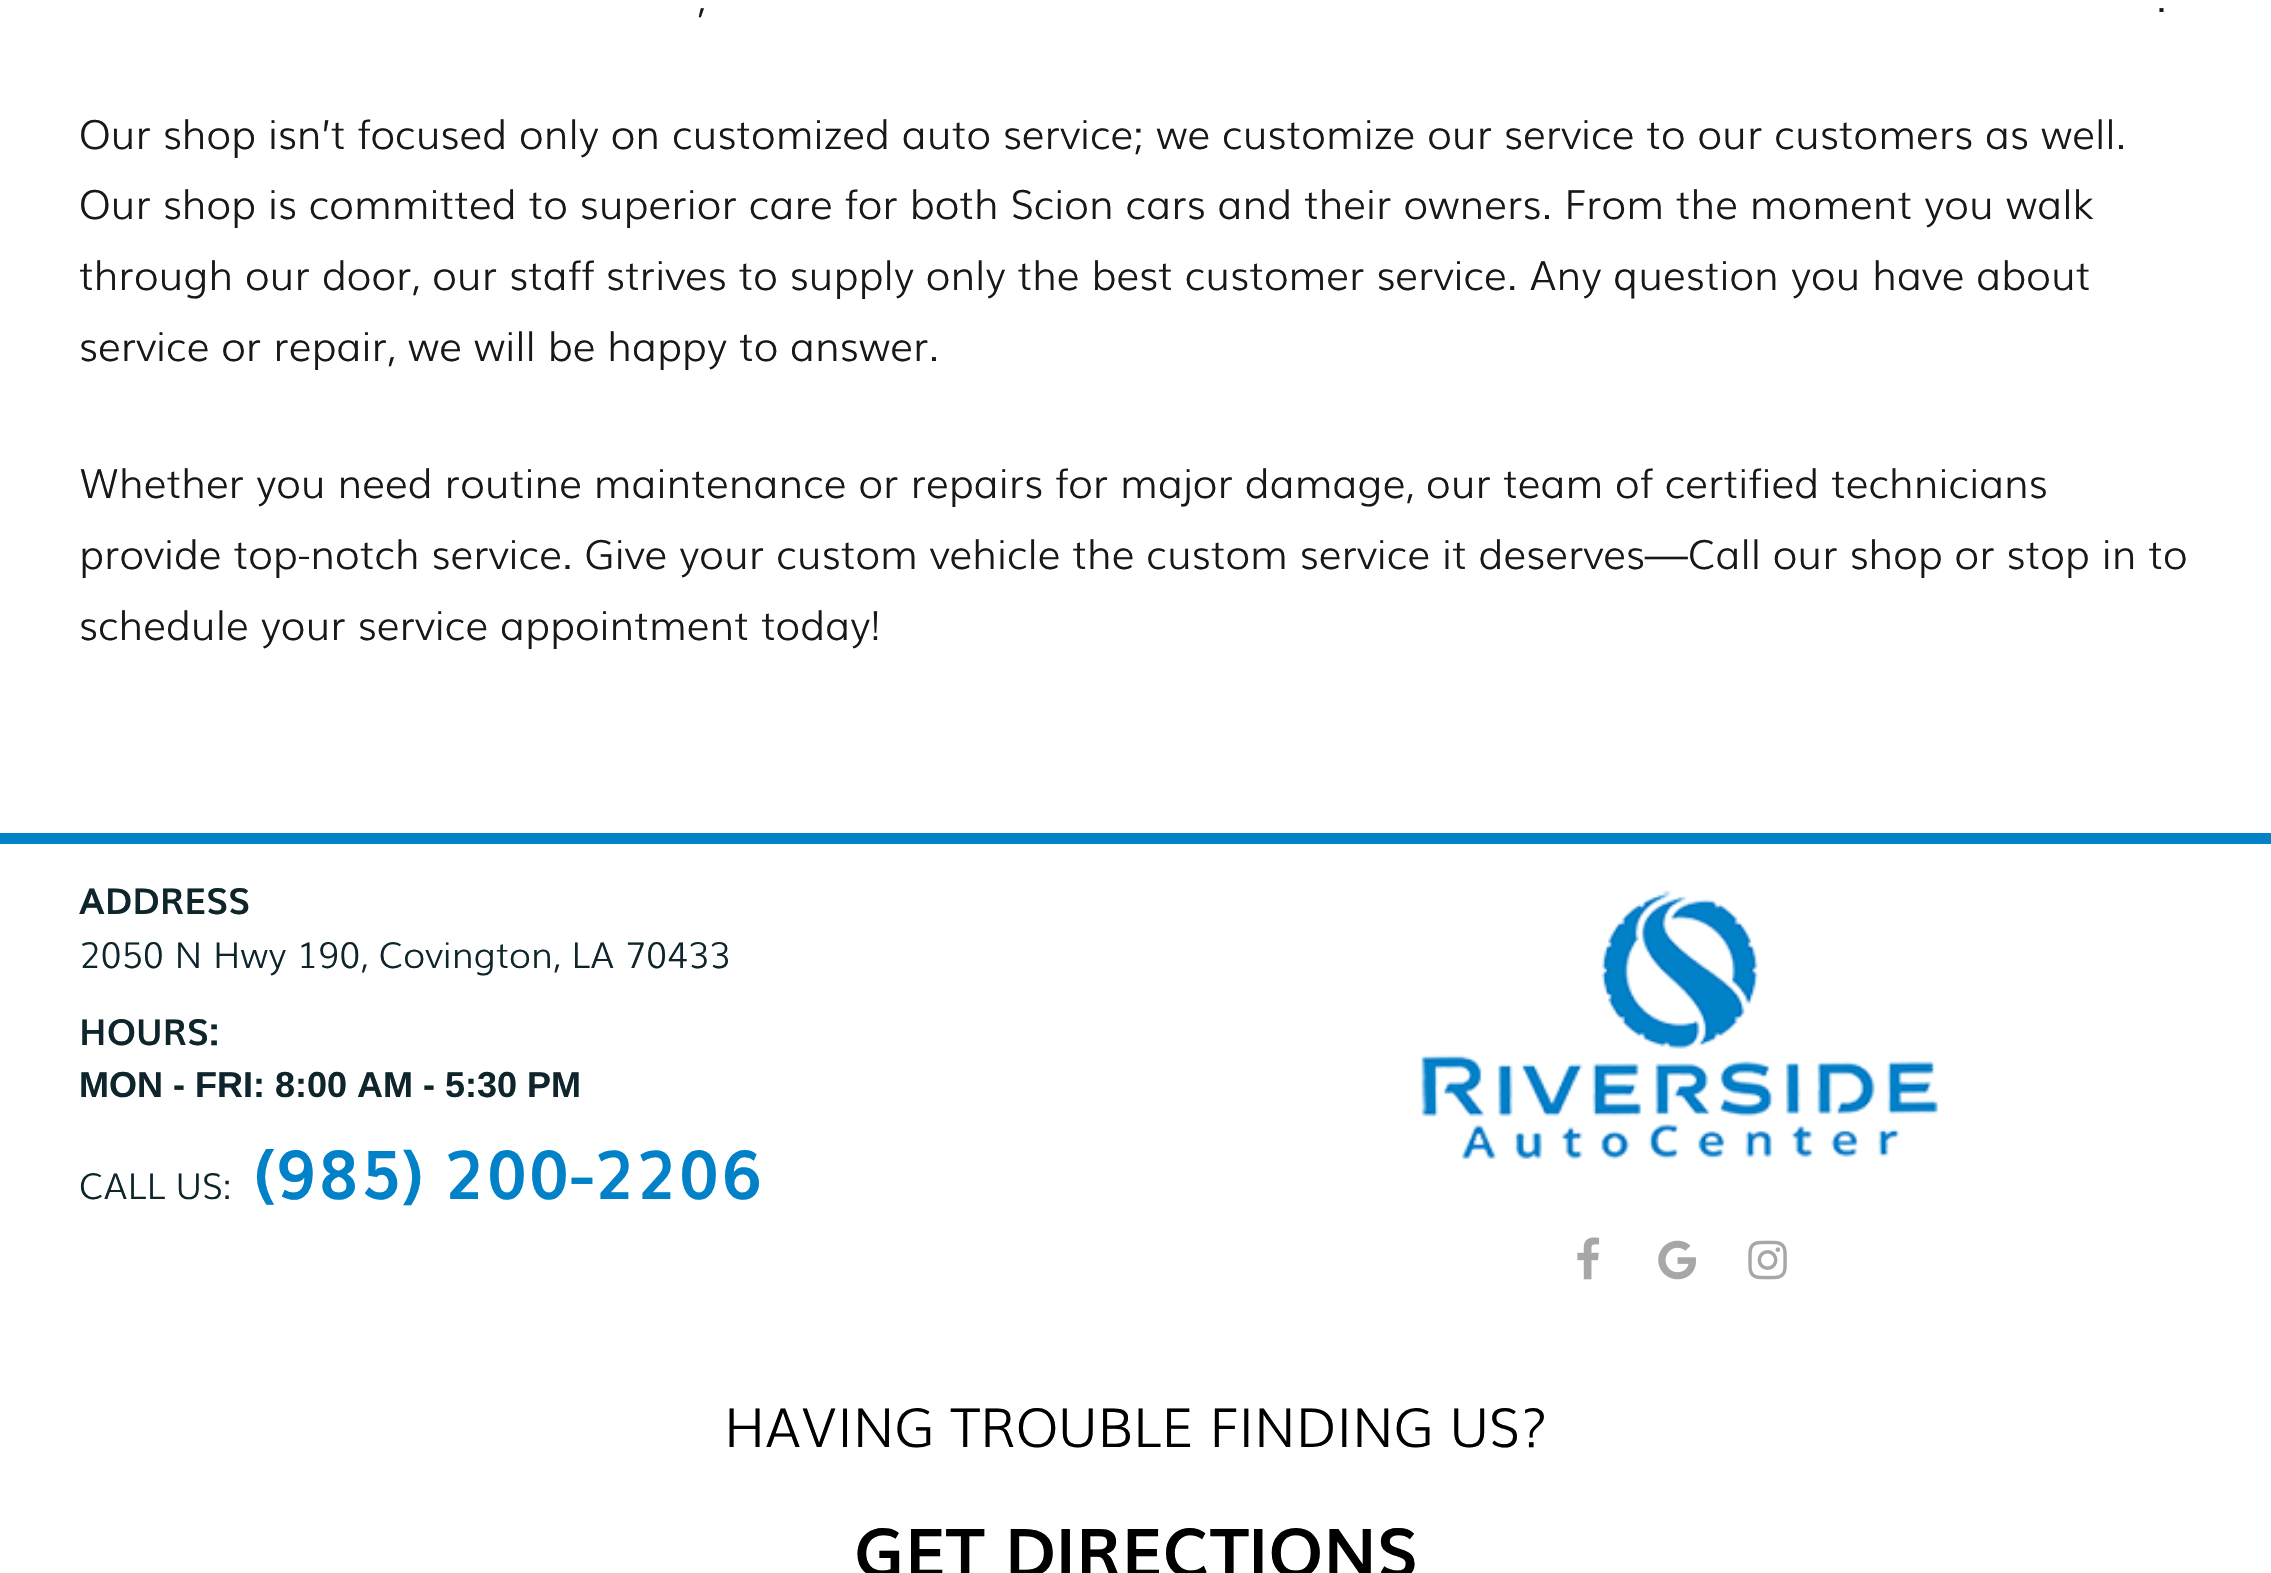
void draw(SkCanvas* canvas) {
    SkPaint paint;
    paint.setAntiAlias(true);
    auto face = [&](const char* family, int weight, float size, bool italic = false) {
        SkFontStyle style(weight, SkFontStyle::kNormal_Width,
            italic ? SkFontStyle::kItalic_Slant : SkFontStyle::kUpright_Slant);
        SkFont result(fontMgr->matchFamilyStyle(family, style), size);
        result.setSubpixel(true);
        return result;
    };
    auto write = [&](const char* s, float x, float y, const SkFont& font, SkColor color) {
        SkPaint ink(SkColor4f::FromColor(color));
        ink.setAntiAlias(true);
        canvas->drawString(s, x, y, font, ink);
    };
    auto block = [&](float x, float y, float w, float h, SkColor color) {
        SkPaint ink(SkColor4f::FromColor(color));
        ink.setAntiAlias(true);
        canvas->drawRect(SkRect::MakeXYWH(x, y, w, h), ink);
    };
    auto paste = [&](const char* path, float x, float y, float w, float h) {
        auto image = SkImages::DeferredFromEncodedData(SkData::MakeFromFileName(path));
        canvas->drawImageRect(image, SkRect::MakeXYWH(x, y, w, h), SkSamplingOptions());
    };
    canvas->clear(SK_ColorWHITE);
    auto kFont1 = face("Muli", 300, 40.5f);
    write(",", 697, 12, kFont1, SkColorSetRGB(24, 24, 24));
    write(".", 2156, 12, kFont1, SkColorSetRGB(24, 24, 24));
    write("Our shop isn’t focused only on customized auto service; we customize our service to our customers as well.", 79, 149, kFont1, SkColorSetRGB(24, 24, 24));
    write("Our shop is committed to superior care for both Scion cars and their owners. From the moment you walk", 79, 219, kFont1, SkColorSetRGB(24, 24, 24));
    write("through our door, our staff strives to supply only the best customer service. Any question you have about", 79, 290, kFont1, SkColorSetRGB(24, 24, 24));
    write("service or repair, we will be happy to answer.", 79, 361, kFont1, SkColorSetRGB(24, 24, 24));
    write("Whether you need routine maintenance or repairs for major damage, our team of certified technicians", 79, 498, kFont1, SkColorSetRGB(24, 24, 24));
    write("provide top-notch service. Give your custom vehicle the custom service it deserves—Call our shop or stop in to", 79, 569, kFont1, SkColorSetRGB(24, 24, 24));
    write("schedule your service appointment today!", 79, 640, kFont1, SkColorSetRGB(24, 24, 24));
    block(0, 833, 2271, 11, SkColorSetRGB(0, 129, 200));
    auto kFont2 = face("Muli", 700, 36);
    write("ADDRESS", 79, 914, kFont2, SkColorSetRGB(15, 37, 44));
    auto kFont3 = face("Muli", 300, 36);
    write("2050 N Hwy 190, Covington, LA 70433", 79, 968, kFont3, SkColorSetRGB(15, 37, 44));
    write("HOURS:", 79, 1045, kFont2, SkColorSetRGB(15, 37, 44));
    auto kFont4 = face("Liberation Sans", 700, 36);
    write("MON - FRI: 8:00 AM - 5:30 PM", 79, 1097, kFont4, SkColorSetRGB(15, 37, 44));
    write("CALL US:", 79, 1199, kFont3, SkColorSetRGB(15, 37, 44));
    auto kFont5 = face("Muli", 700, 67.5f);
    write("(985) 200-2206", 253, 1199, kFont5, SkColorSetRGB(0, 129, 200));
    paste("pic1.png", 1421, 890, 517, 270);
    paste("pic2.png", 1577, 1237, 23, 43);
    paste("pic3.png", 1658, 1240, 38, 40);
    paste("pic4.png", 1748, 1240, 39, 40);
    auto kFont6 = face("Muli", 300, 54);
    write("HAVING TROUBLE FINDING US?", 724, 1447, kFont6, SK_ColorBLACK);
    write("GET DIRECTIONS", 854, 1577, kFont5, SK_ColorBLACK);
}
